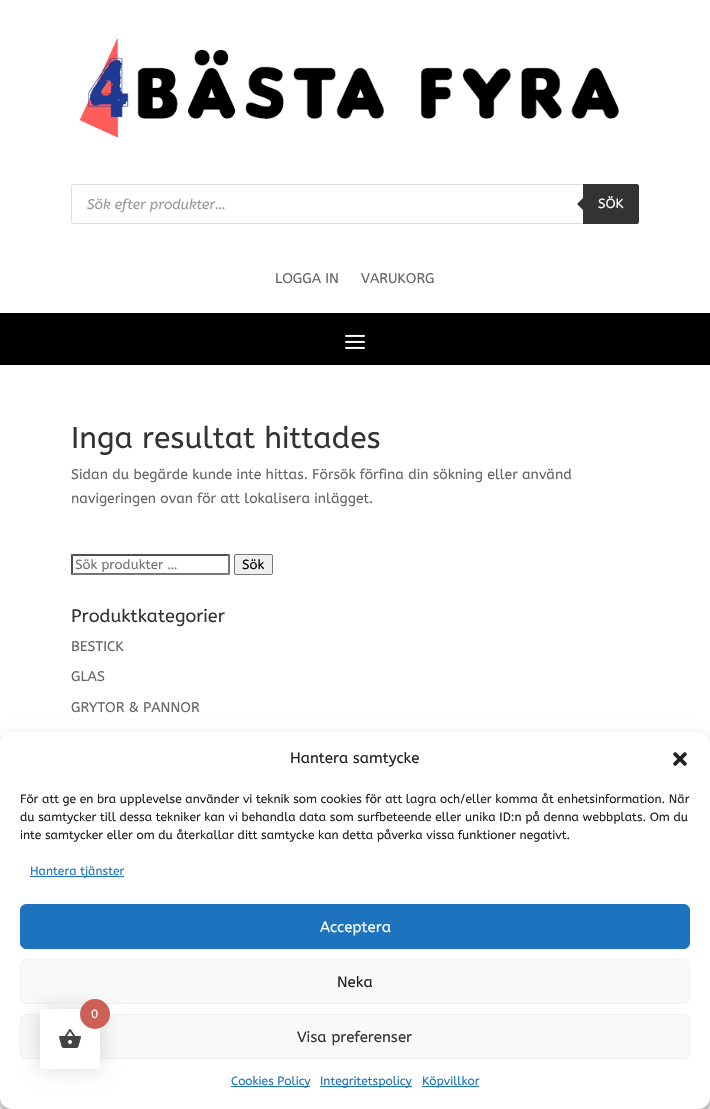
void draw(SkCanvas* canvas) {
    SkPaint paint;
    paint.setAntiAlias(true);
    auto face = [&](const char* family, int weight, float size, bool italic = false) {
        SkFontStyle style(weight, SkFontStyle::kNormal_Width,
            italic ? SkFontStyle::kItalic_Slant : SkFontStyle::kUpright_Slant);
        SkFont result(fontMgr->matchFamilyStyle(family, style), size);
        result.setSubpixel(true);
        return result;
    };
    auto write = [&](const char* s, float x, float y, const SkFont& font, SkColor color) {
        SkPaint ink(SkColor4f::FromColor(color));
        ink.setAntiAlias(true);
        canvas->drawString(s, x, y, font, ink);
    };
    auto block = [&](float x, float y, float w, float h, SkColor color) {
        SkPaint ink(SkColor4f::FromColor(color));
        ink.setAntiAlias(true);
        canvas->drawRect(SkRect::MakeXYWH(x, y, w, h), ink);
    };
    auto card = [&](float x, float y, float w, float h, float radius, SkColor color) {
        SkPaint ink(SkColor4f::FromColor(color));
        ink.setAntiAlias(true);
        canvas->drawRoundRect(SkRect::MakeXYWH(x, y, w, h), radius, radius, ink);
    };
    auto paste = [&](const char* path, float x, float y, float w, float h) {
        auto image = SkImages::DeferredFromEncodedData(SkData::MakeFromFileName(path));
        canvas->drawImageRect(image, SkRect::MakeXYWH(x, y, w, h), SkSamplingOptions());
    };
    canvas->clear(SK_ColorWHITE);
    paste("pic1.png", 79, 38, 540, 100);
    paint.setStyle(SkPaint::kStroke_Style);
    paint.setStrokeWidth(1);
    paint.setColor(SkColorSetRGB(221, 221, 221));
    canvas->drawRoundRect(SkRect::MakeXYWH(71.5f, 184.5f, 567, 39), 2.5f, 2.5f, paint);
    auto kFont1 = face("ABeeZee", 400, 14, true);
    write("Sök efter produkter…", 87, 209, kFont1, SkColorSetRGB(153, 153, 153));
    paint.setStyle(SkPaint::kFill_Style);
    paint.setColor(SkColorSetRGB(51, 51, 51));
    canvas->drawPath(SkPathBuilder().moveTo(583, 184).lineTo(637, 184).cubicTo(638, 184, 639, 185, 639, 186).lineTo(639, 222).cubicTo(639, 223, 638, 224, 637, 224).lineTo(583, 224).close().detach(), paint);
    canvas->drawPath(SkPathBuilder().moveTo(585, 196).lineTo(585, 212).lineTo(577, 204).close().detach(), paint);
    auto kFont2 = face("ABeeZee", 400, 13.25f);
    write("SÖK", 598, 208, kFont2, SK_ColorWHITE);
    auto kFont3 = face("ABeeZee", 400, 14);
    write("LOGGA IN", 275, 283, kFont3, SkColorSetRGB(102, 102, 102));
    write("VARUKORG", 361, 283, kFont3, SkColorSetRGB(102, 102, 102));
    block(0, 313, 710, 52, SK_ColorBLACK);
    paste("pic2.png", 345, 334, 20, 15);
    auto kFont4 = face("ABeeZee", 400, 30);
    write("Inga resultat hittades", 71, 448, kFont4, SkColorSetRGB(51, 51, 51));
    write("Sidan du begärde kunde inte hittas. Försök förfina din sökning eller använd", 71, 479, kFont3, SkColorSetRGB(102, 102, 102));
    write("navigeringen ovan för att lokalisera inlägget.", 71, 503, kFont3, SkColorSetRGB(102, 102, 102));
    paint.setColor(SkColorSetRGB(79, 79, 79));
    canvas->drawPath(SkPathBuilder().moveTo(71, 554).lineTo(230, 554).lineTo(228, 556).lineTo(73, 556).close().detach(), paint);
    paint.setColor(SkColorSetRGB(118, 118, 118));
    canvas->drawPath(SkPathBuilder().moveTo(230, 554).lineTo(230, 575).lineTo(228, 573).lineTo(228, 556).close().detach(), paint);
    canvas->drawPath(SkPathBuilder().moveTo(230, 575).lineTo(71, 575).lineTo(73, 573).lineTo(228, 573).close().detach(), paint);
    paint.setColor(SkColorSetRGB(79, 79, 79));
    canvas->drawPath(SkPathBuilder().moveTo(71, 575).lineTo(71, 554).lineTo(73, 556).lineTo(73, 573).close().detach(), paint);
    write("Sök produkter …", 75, 569, kFont2, SkColorSetRGB(117, 117, 117));
    paint.setColor(SkColorSetRGB(239, 239, 239));
    canvas->drawRoundRect(SkRect::MakeXYWH(234.5f, 554.5f, 38, 20), 1.5f, 1.5f, paint);
    paint.setStyle(SkPaint::kStroke_Style);
    paint.setColor(SkColorSetRGB(118, 118, 118));
    canvas->drawRoundRect(SkRect::MakeXYWH(234.5f, 554.5f, 38, 20), 1.5f, 1.5f, paint);
    write("Sök", 242, 569, kFont2, SK_ColorBLACK);
    auto kFont5 = face("ABeeZee", 400, 18);
    write("Produktkategorier", 71, 622, kFont5, SkColorSetRGB(51, 51, 51));
    write("BESTICK", 71, 651, kFont3, SkColorSetRGB(102, 102, 102));
    write("GLAS", 71, 681, kFont3, SkColorSetRGB(102, 102, 102));
    write("GRYTOR & PANNOR", 71, 712, kFont3, SkColorSetRGB(102, 102, 102));
    paint.setStyle(SkPaint::kFill_Style);
    paint.setColor(SkColorSetARGB(59, 0, 0, 0));
    paint.setMaskFilter(SkMaskFilter::MakeBlur(kNormal_SkBlurStyle, 3));
    canvas->drawRoundRect(SkRect::MakeXYWH(0, 738, 710, 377), 12, 12, paint);
    paint.setMaskFilter(nullptr);
    paint.setColor(SkColorSetARGB(48, 0, 0, 0));
    paint.setMaskFilter(SkMaskFilter::MakeBlur(kNormal_SkBlurStyle, 10));
    canvas->drawRoundRect(SkRect::MakeXYWH(0, 742, 710, 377), 12, 12, paint);
    paint.setMaskFilter(nullptr);
    card(0, 732, 710, 377, 12, SK_ColorWHITE);
    auto kFont6 = face("ABeeZee", 400, 15);
    write("Hantera samtycke", 290, 763, kFont6, SkColorSetRGB(34, 34, 34));
    paste("pic3.png", 673, 752, 14, 14);
    auto kFont7 = face("ABeeZee", 400, 12);
    write("För att ge en bra upplevelse använder vi teknik som cookies för att lagra och/eller komma åt enhetsinformation. När", 20, 803, kFont7, SkColorSetRGB(34, 34, 34));
    write("du samtycker till dessa tekniker kan vi behandla data som surfbeteende eller unika ID:n på denna webbplats. Om du", 20, 821, kFont7, SkColorSetRGB(34, 34, 34));
    write("inte samtycker eller om du återkallar ditt samtycke kan detta påverka vissa funktioner negativt.", 20, 839, kFont7, SkColorSetRGB(34, 34, 34));
    block(30, 876, 94, 1, SkColorSetRGB(30, 115, 190));
    write("Hantera tjänster", 30, 875, kFont7, SkColorSetRGB(30, 115, 190));
    paint.setColor(SkColorSetRGB(30, 115, 190));
    canvas->drawRoundRect(SkRect::MakeXYWH(20.5f, 904.5f, 669, 44), 5.5f, 5.5f, paint);
    paint.setStyle(SkPaint::kStroke_Style);
    canvas->drawRoundRect(SkRect::MakeXYWH(20.5f, 904.5f, 669, 44), 5.5f, 5.5f, paint);
    write("Acceptera", 320, 932, kFont6, SK_ColorWHITE);
    paint.setStyle(SkPaint::kFill_Style);
    paint.setColor(SkColorSetRGB(249, 249, 249));
    canvas->drawRoundRect(SkRect::MakeXYWH(20.5f, 959.5f, 669, 44), 5.5f, 5.5f, paint);
    paint.setStyle(SkPaint::kStroke_Style);
    paint.setColor(SkColorSetRGB(242, 242, 242));
    canvas->drawRoundRect(SkRect::MakeXYWH(20.5f, 959.5f, 669, 44), 5.5f, 5.5f, paint);
    write("Neka", 337, 987, kFont6, SkColorSetRGB(34, 34, 34));
    paint.setStyle(SkPaint::kFill_Style);
    paint.setColor(SkColorSetRGB(249, 249, 249));
    canvas->drawRoundRect(SkRect::MakeXYWH(20.5f, 1014.5f, 669, 44), 5.5f, 5.5f, paint);
    paint.setStyle(SkPaint::kStroke_Style);
    paint.setColor(SkColorSetRGB(242, 242, 242));
    canvas->drawRoundRect(SkRect::MakeXYWH(20.5f, 1014.5f, 669, 44), 5.5f, 5.5f, paint);
    write("Visa preferenser", 297, 1042, kFont6, SkColorSetRGB(51, 51, 51));
    block(231, 1086, 79, 1, SkColorSetRGB(30, 115, 190));
    write("Cookies Policy", 231, 1085, kFont7, SkColorSetRGB(30, 115, 190));
    block(320, 1086, 92, 1, SkColorSetRGB(30, 115, 190));
    write("Integritetspolicy", 320, 1085, kFont7, SkColorSetRGB(30, 115, 190));
    block(422, 1086, 57, 1, SkColorSetRGB(30, 115, 190));
    write("Köpvillkor", 422, 1085, kFont7, SkColorSetRGB(30, 115, 190));
    paint.setStyle(SkPaint::kFill_Style);
    paint.setColor(SkColorSetARGB(38, 0, 0, 0));
    paint.setMaskFilter(SkMaskFilter::MakeBlur(kNormal_SkBlurStyle, 10));
    canvas->drawRoundRect(SkRect::MakeXYWH(40, 1009, 60, 60), 4, 4, paint);
    paint.setMaskFilter(nullptr);
    card(40, 1009, 60, 60, 4, SK_ColorWHITE);
    paint.setColor(SkColorSetRGB(204, 96, 85));
    canvas->drawCircle(95, 1014, 15, paint);
    write("0", 91, 1018, kFont7, SK_ColorWHITE);
    paste("pic4.png", 59, 1029, 22, 19);
}
